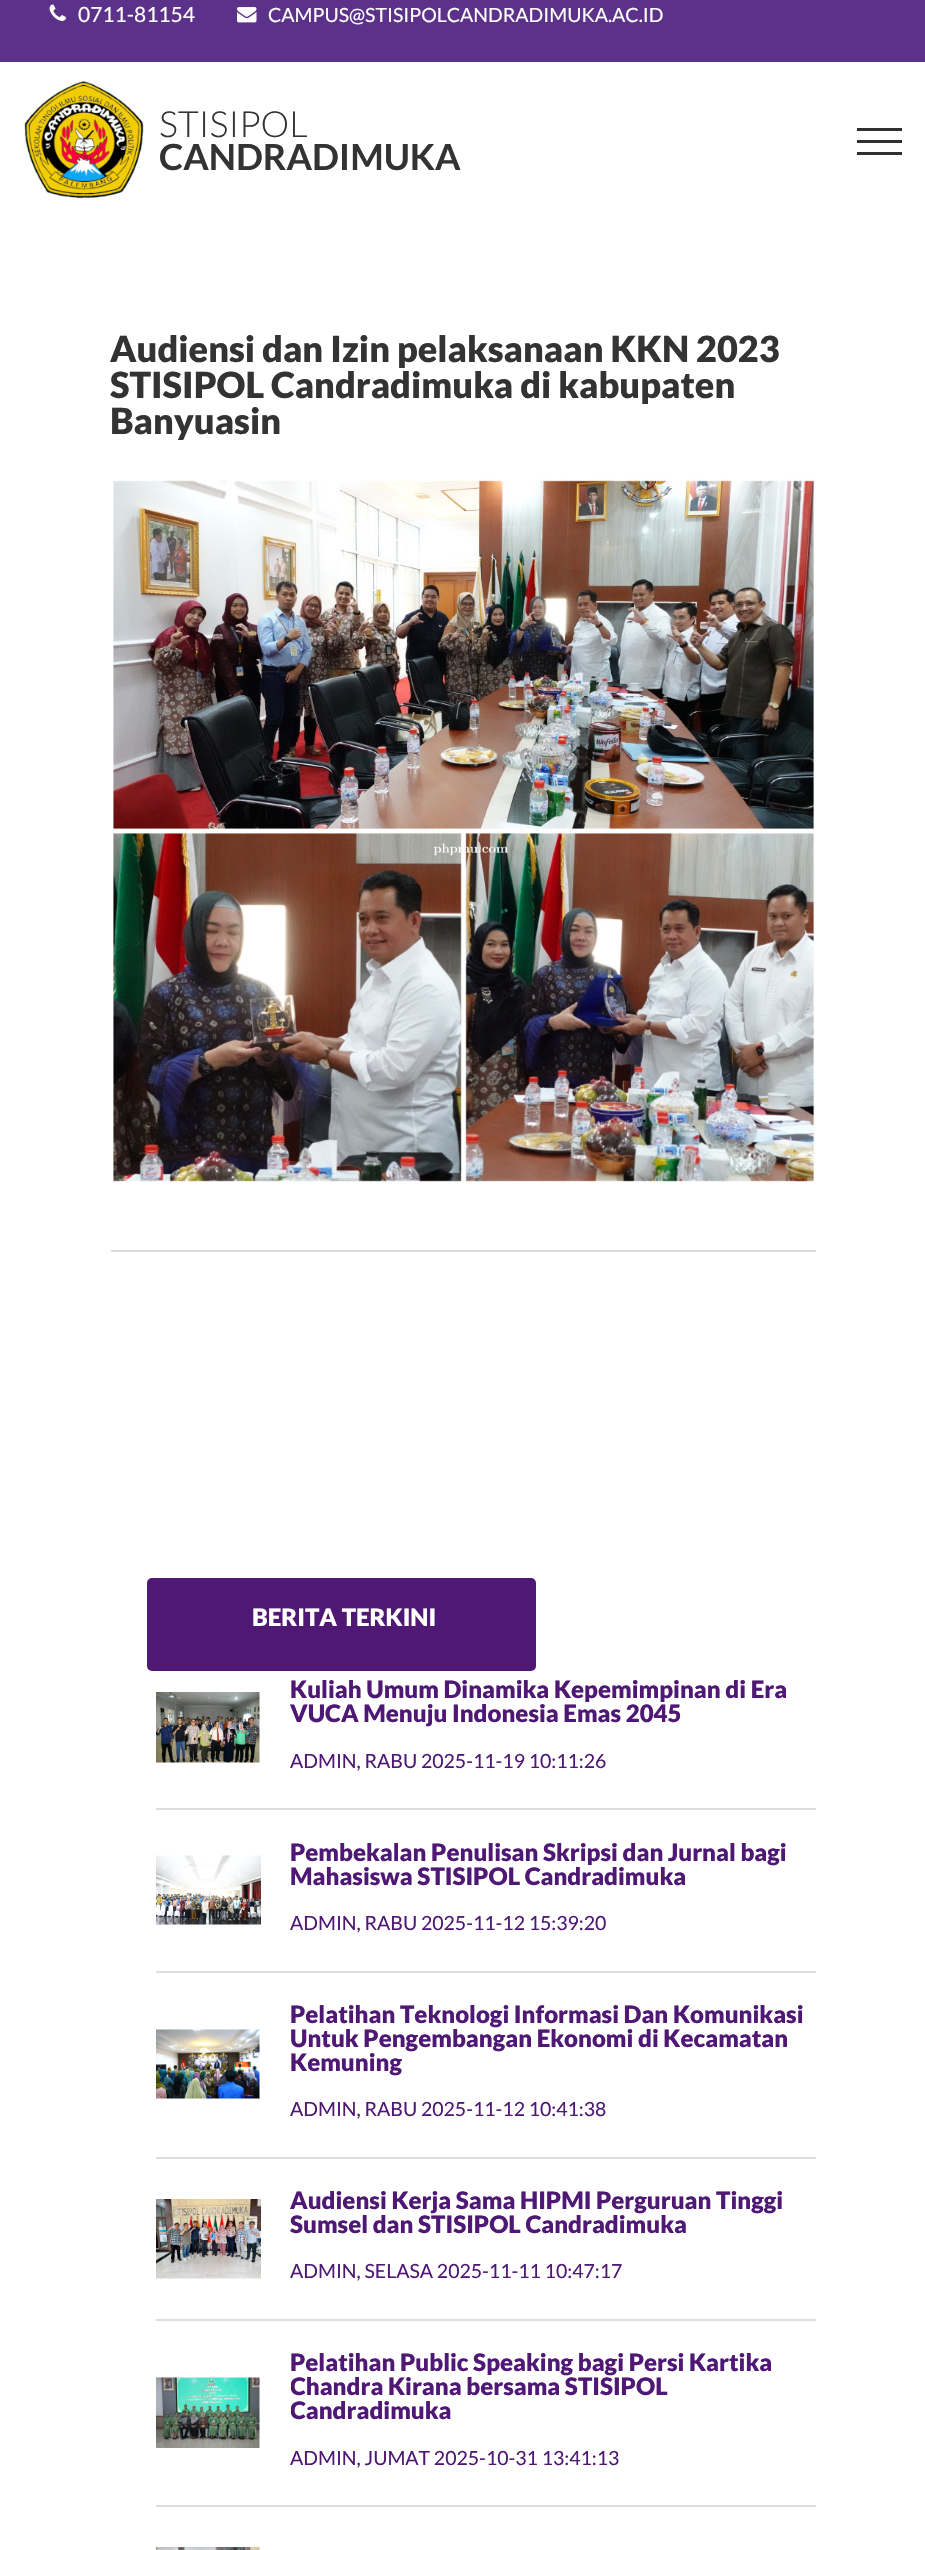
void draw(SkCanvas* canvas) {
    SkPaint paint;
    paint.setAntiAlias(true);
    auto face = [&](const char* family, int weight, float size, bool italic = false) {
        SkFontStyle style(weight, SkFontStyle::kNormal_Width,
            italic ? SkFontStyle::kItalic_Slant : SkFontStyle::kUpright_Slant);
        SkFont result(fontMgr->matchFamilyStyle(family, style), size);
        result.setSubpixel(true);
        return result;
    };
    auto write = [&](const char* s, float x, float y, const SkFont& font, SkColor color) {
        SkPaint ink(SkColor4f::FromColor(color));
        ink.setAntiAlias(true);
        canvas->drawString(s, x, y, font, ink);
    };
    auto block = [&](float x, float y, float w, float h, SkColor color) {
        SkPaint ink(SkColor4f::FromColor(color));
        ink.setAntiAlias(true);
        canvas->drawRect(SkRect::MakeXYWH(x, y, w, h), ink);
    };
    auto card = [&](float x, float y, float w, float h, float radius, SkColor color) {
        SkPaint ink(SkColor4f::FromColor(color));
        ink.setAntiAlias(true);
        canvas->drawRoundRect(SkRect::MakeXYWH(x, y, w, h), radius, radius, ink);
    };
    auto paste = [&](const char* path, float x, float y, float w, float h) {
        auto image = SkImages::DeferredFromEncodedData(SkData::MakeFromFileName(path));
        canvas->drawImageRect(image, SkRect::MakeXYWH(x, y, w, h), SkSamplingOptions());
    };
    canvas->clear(SK_ColorWHITE);
    block(0, 0, 925, 62, SkColorSetRGB(91, 49, 137));
    paste("pic1.png", 49, 4, 17, 17);
    auto kFont1 = face("Lato", 400, 21);
    write("0711-81154", 78, 22, kFont1, SK_ColorWHITE);
    paste("pic2.png", 237, 7, 20, 16);
    auto kFont2 = face("Lato", 400, 19.5f);
    write("CAMPUS@STISIPOLCANDRADIMUKA.AC.ID", 268, 22, kFont2, SK_ColorWHITE);
    paste("pic3.png", 24, 81, 120, 118);
    auto kFont3 = face("Lato", 300, 36);
    write("STISIPOL", 159, 137, kFont3, SkColorSetRGB(51, 51, 51));
    auto kFont4 = face("Lato", 700, 36);
    write("CANDRADIMUKA", 159, 170, kFont4, SkColorSetRGB(51, 51, 51));
    block(857, 140, 45, 3, SkColorSetRGB(48, 48, 48));
    block(857, 128, 45, 3, SkColorSetRGB(48, 48, 48));
    block(857, 152, 45, 3, SkColorSetRGB(48, 48, 48));
    auto kFont5 = face("Lato", 900, 36);
    write("Audiensi dan Izin pelaksanaan KKN 2023", 110, 362, kFont5, SkColorSetRGB(51, 51, 51));
    write("STISIPOL Candradimuka di kabupaten", 110, 398, kFont5, SkColorSetRGB(51, 51, 51));
    write("Banyuasin", 110, 434, kFont5, SkColorSetRGB(51, 51, 51));
    paste("pic4.png", 113, 479, 702, 703);
    block(111, 1250, 705, 2, SkColorSetRGB(221, 221, 221));
    card(147, 1578, 389, 93, 5, SkColorSetRGB(78, 24, 116));
    auto kFont6 = face("Lato", 900, 24);
    write("BERITA TERKINI", 252, 1626, kFont6, SK_ColorWHITE);
    paste("pic5.png", 156, 1692, 104, 71);
    write("Kuliah Umum Dinamika Kepemimpinan di Era", 290, 1698, kFont6, SkColorSetRGB(78, 24, 116));
    write("VUCA Menuju Indonesia Emas 2045", 290, 1722, kFont6, SkColorSetRGB(78, 24, 116));
    write("ADMIN, RABU 2025-11-19 10:11:26", 290, 1768, kFont2, SkColorSetRGB(78, 24, 116));
    block(156, 1808, 660, 2, SkColorSetRGB(221, 221, 221));
    paste("pic6.png", 156, 1855, 105, 70);
    write("Pembekalan Penulisan Skripsi dan Jurnal bagi", 290, 1861, kFont6, SkColorSetRGB(78, 24, 116));
    write("Mahasiswa STISIPOL Candradimuka", 290, 1885, kFont6, SkColorSetRGB(78, 24, 116));
    write("ADMIN, RABU 2025-11-12 15:39:20", 290, 1930, kFont2, SkColorSetRGB(78, 24, 116));
    block(156, 1971, 660, 2, SkColorSetRGB(221, 221, 221));
    paste("pic7.png", 156, 2029, 104, 70);
    write("Pelatihan Teknologi Informasi Dan Komunikasi", 290, 2023, kFont6, SkColorSetRGB(78, 24, 116));
    write("Untuk Pengembangan Ekonomi di Kecamatan", 290, 2047, kFont6, SkColorSetRGB(78, 24, 116));
    write("Kemuning", 290, 2071, kFont6, SkColorSetRGB(78, 24, 116));
    write("ADMIN, RABU 2025-11-12 10:41:38", 290, 2116, kFont2, SkColorSetRGB(78, 24, 116));
    block(156, 2157, 660, 2, SkColorSetRGB(221, 221, 221));
    paste("pic8.png", 156, 2199, 105, 80);
    write("Audiensi Kerja Sama HIPMI Perguruan Tinggi", 290, 2209, kFont6, SkColorSetRGB(78, 24, 116));
    write("Sumsel dan STISIPOL Candradimuka", 290, 2233, kFont6, SkColorSetRGB(78, 24, 116));
    write("ADMIN, SELASA 2025-11-11 10:47:17", 290, 2278, kFont2, SkColorSetRGB(78, 24, 116));
    block(156, 2319, 660, 2, SkColorSetRGB(221, 221, 221));
    paste("pic9.png", 156, 2377, 104, 71);
    write("Pelatihan Public Speaking bagi Persi Kartika", 290, 2371, kFont6, SkColorSetRGB(78, 24, 116));
    canvas->save();
    canvas->clipRect(SkRect::MakeXYWH(291, 2351, 525, 124));
    write("Chandra Kirana bersama STISIPOL", 290, 2395, kFont6, SkColorSetRGB(78, 24, 116));
    write("Candradimuka", 290, 2419, kFont6, SkColorSetRGB(78, 24, 116));
    canvas->restore();
    write("ADMIN, JUMAT 2025-10-31 13:41:13", 290, 2465, kFont2, SkColorSetRGB(78, 24, 116));
    block(156, 2505, 660, 2, SkColorSetRGB(221, 221, 221));
    paste("pic10.png", 156, 2547, 104, 3);
}
